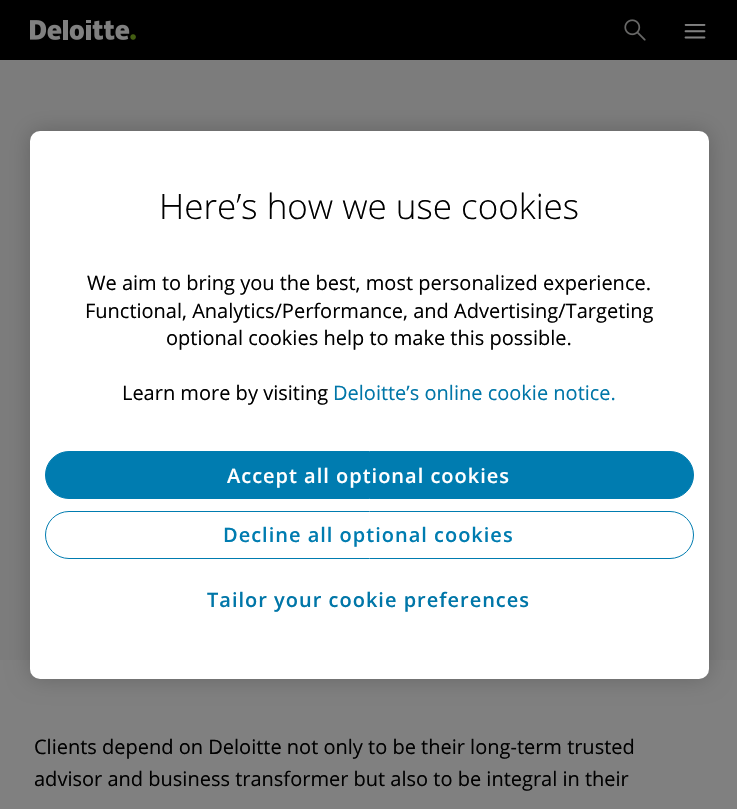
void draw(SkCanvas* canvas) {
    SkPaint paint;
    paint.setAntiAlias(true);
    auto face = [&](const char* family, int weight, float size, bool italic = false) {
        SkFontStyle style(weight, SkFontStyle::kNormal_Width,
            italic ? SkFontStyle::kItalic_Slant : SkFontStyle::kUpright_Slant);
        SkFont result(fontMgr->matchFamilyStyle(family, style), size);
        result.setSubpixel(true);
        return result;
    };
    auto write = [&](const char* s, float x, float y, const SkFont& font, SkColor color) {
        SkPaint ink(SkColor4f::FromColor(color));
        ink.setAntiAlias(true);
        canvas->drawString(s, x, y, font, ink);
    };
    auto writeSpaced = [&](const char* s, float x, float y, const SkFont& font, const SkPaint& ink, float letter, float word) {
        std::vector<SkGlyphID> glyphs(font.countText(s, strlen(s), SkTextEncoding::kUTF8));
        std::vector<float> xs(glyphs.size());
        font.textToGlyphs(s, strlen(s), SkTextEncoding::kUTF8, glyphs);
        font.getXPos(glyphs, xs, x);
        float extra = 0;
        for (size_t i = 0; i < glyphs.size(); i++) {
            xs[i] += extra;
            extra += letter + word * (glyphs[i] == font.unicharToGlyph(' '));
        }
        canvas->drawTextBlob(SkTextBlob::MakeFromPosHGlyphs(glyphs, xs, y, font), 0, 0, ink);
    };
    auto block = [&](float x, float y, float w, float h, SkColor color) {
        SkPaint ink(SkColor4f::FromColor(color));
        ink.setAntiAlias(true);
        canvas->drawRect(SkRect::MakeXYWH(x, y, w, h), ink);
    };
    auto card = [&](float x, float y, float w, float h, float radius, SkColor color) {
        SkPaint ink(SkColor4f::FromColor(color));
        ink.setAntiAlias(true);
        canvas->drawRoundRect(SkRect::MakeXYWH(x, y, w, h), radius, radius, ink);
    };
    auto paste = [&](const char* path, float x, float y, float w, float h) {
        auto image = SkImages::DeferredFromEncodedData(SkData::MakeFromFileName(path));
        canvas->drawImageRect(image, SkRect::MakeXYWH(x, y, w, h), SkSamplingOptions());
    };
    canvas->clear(SkColorSetRGB(128, 128, 128));
    block(0, 60, 737, 600, SkColorSetRGB(124, 124, 124));
    paint.setColor(SkColorSetARGB(51, 0, 0, 0));
    paint.setMaskFilter(SkMaskFilter::MakeBlur(kNormal_SkBlurStyle, 11));
    canvas->drawRoundRect(SkRect::MakeXYWH(30, 131, 679, 548), 10, 10, paint);
    paint.setMaskFilter(nullptr);
    card(30, 131, 679, 548, 10, SK_ColorWHITE);
    auto kFont1 = face("Open Sans", 300, 35);
    write("Here’s how we use cookies", 159, 219, kFont1, SK_ColorBLACK);
    auto kFont2 = face("Open Sans", 400, 20);
    write("We aim to bring you the best, most personalized experience.", 87, 290, kFont2, SK_ColorBLACK);
    write("Functional, Analytics/Performance, and Advertising/Targeting", 85, 318, kFont2, SK_ColorBLACK);
    write("optional cookies help to make this possible.", 166, 345, kFont2, SK_ColorBLACK);
    write("Learn more by visiting", 122, 400, kFont2, SK_ColorBLACK);
    write("Deloitte’s online cookie notice.", 333, 400, kFont2, SkColorSetRGB(0, 118, 168));
    paint.setColor(SkColorSetRGB(0, 124, 176));
    canvas->drawRoundRect(SkRect::MakeXYWH(45.5f, 451.5f, 648, 47), 23.5f, 23.5f, paint);
    paint.setStyle(SkPaint::kStroke_Style);
    paint.setStrokeWidth(1);
    canvas->drawRoundRect(SkRect::MakeXYWH(45.5f, 451.5f, 648, 47), 23.5f, 23.5f, paint);
    auto kFont3 = face("Open Sans", 600, 20);
    paint.setStyle(SkPaint::kFill_Style);
    paint.setColor(SK_ColorWHITE);
    writeSpaced("Accept all optional cookies", 227, 483, kFont3, paint, 1, 0);
    paint.setStyle(SkPaint::kStroke_Style);
    paint.setColor(SkColorSetRGB(0, 124, 176));
    canvas->drawRoundRect(SkRect::MakeXYWH(45.5f, 511.5f, 648, 47), 23.5f, 23.5f, paint);
    paint.setStyle(SkPaint::kFill_Style);
    writeSpaced("Decline all optional cookies", 223, 542, kFont3, paint, 1, 0);
    paint.setColor(SkColorSetRGB(0, 118, 168));
    writeSpaced("Tailor your cookie preferences", 207, 607, kFont3, paint, 1, 0);
    block(0, 0, 737, 60, SK_ColorBLACK);
    paste("pic1.png", 30, 20, 106, 20);
    paste("pic2.png", 624, 19, 22, 22);
    paste("pic3.png", 684, 24, 22, 15);
    write("Clients depend on Deloitte not only to be their long-term trusted", 34, 754, kFont2, SK_ColorBLACK);
    write("advisor and business transformer but also to be integral in their", 34, 786, kFont2, SK_ColorBLACK);
}
